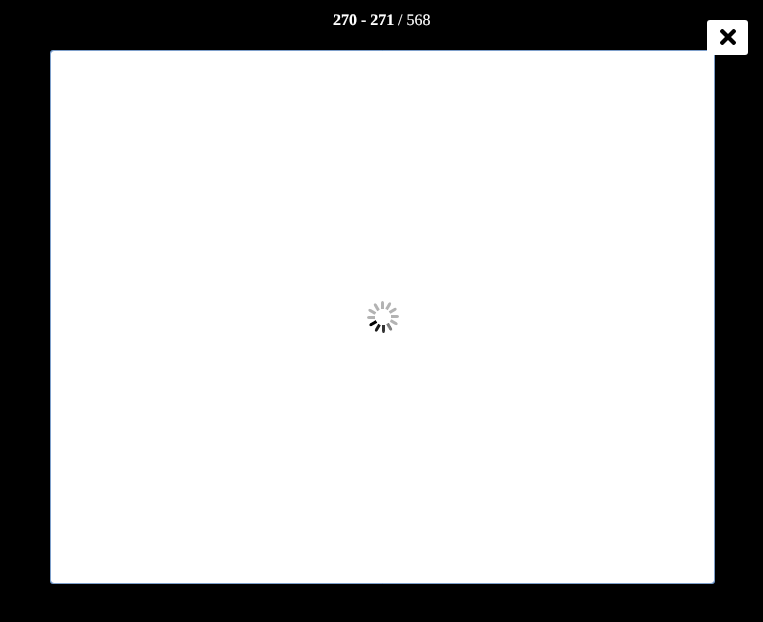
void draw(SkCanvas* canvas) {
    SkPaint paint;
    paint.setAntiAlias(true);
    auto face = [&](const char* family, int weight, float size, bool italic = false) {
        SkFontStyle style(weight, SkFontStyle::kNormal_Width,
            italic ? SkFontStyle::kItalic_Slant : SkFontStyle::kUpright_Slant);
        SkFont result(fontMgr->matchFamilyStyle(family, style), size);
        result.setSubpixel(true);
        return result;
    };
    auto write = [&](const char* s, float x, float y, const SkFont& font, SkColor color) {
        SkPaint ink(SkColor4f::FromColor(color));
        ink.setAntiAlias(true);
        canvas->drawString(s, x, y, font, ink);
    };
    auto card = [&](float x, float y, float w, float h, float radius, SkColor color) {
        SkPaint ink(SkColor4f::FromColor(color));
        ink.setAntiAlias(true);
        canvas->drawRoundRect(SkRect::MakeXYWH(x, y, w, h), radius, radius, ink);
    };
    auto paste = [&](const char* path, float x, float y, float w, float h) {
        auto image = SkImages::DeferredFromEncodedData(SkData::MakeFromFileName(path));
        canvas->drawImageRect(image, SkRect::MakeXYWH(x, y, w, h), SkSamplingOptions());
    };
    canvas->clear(SK_ColorBLACK);
    auto kFont1 = face("Liberation Serif", 700, 16);
    write("270 - 271", 333, 25, kFont1, SK_ColorWHITE);
    auto kFont2 = face("Liberation Serif", 400, 16);
    write("/ 568", 398, 25, kFont2, SK_ColorWHITE);
    card(50, 50, 665, 534, 3, SkColorSetRGB(39, 95, 167));
    paint.setStyle(SkPaint::kStroke_Style);
    paint.setStrokeWidth(1);
    paint.setColor(SkColorSetARGB(102, 255, 255, 255));
    canvas->drawRoundRect(SkRect::MakeXYWH(50.5f, 50.5f, 664, 533), 2.5f, 2.5f, paint);
    card(51, 51, 663, 532, 3, SK_ColorWHITE);
    card(707, 20, 41, 35, 3, SK_ColorWHITE);
    paste("pic1.png", 720, 29, 16, 16);
    paste("pic2.png", 367, 301, 32, 32);
}
